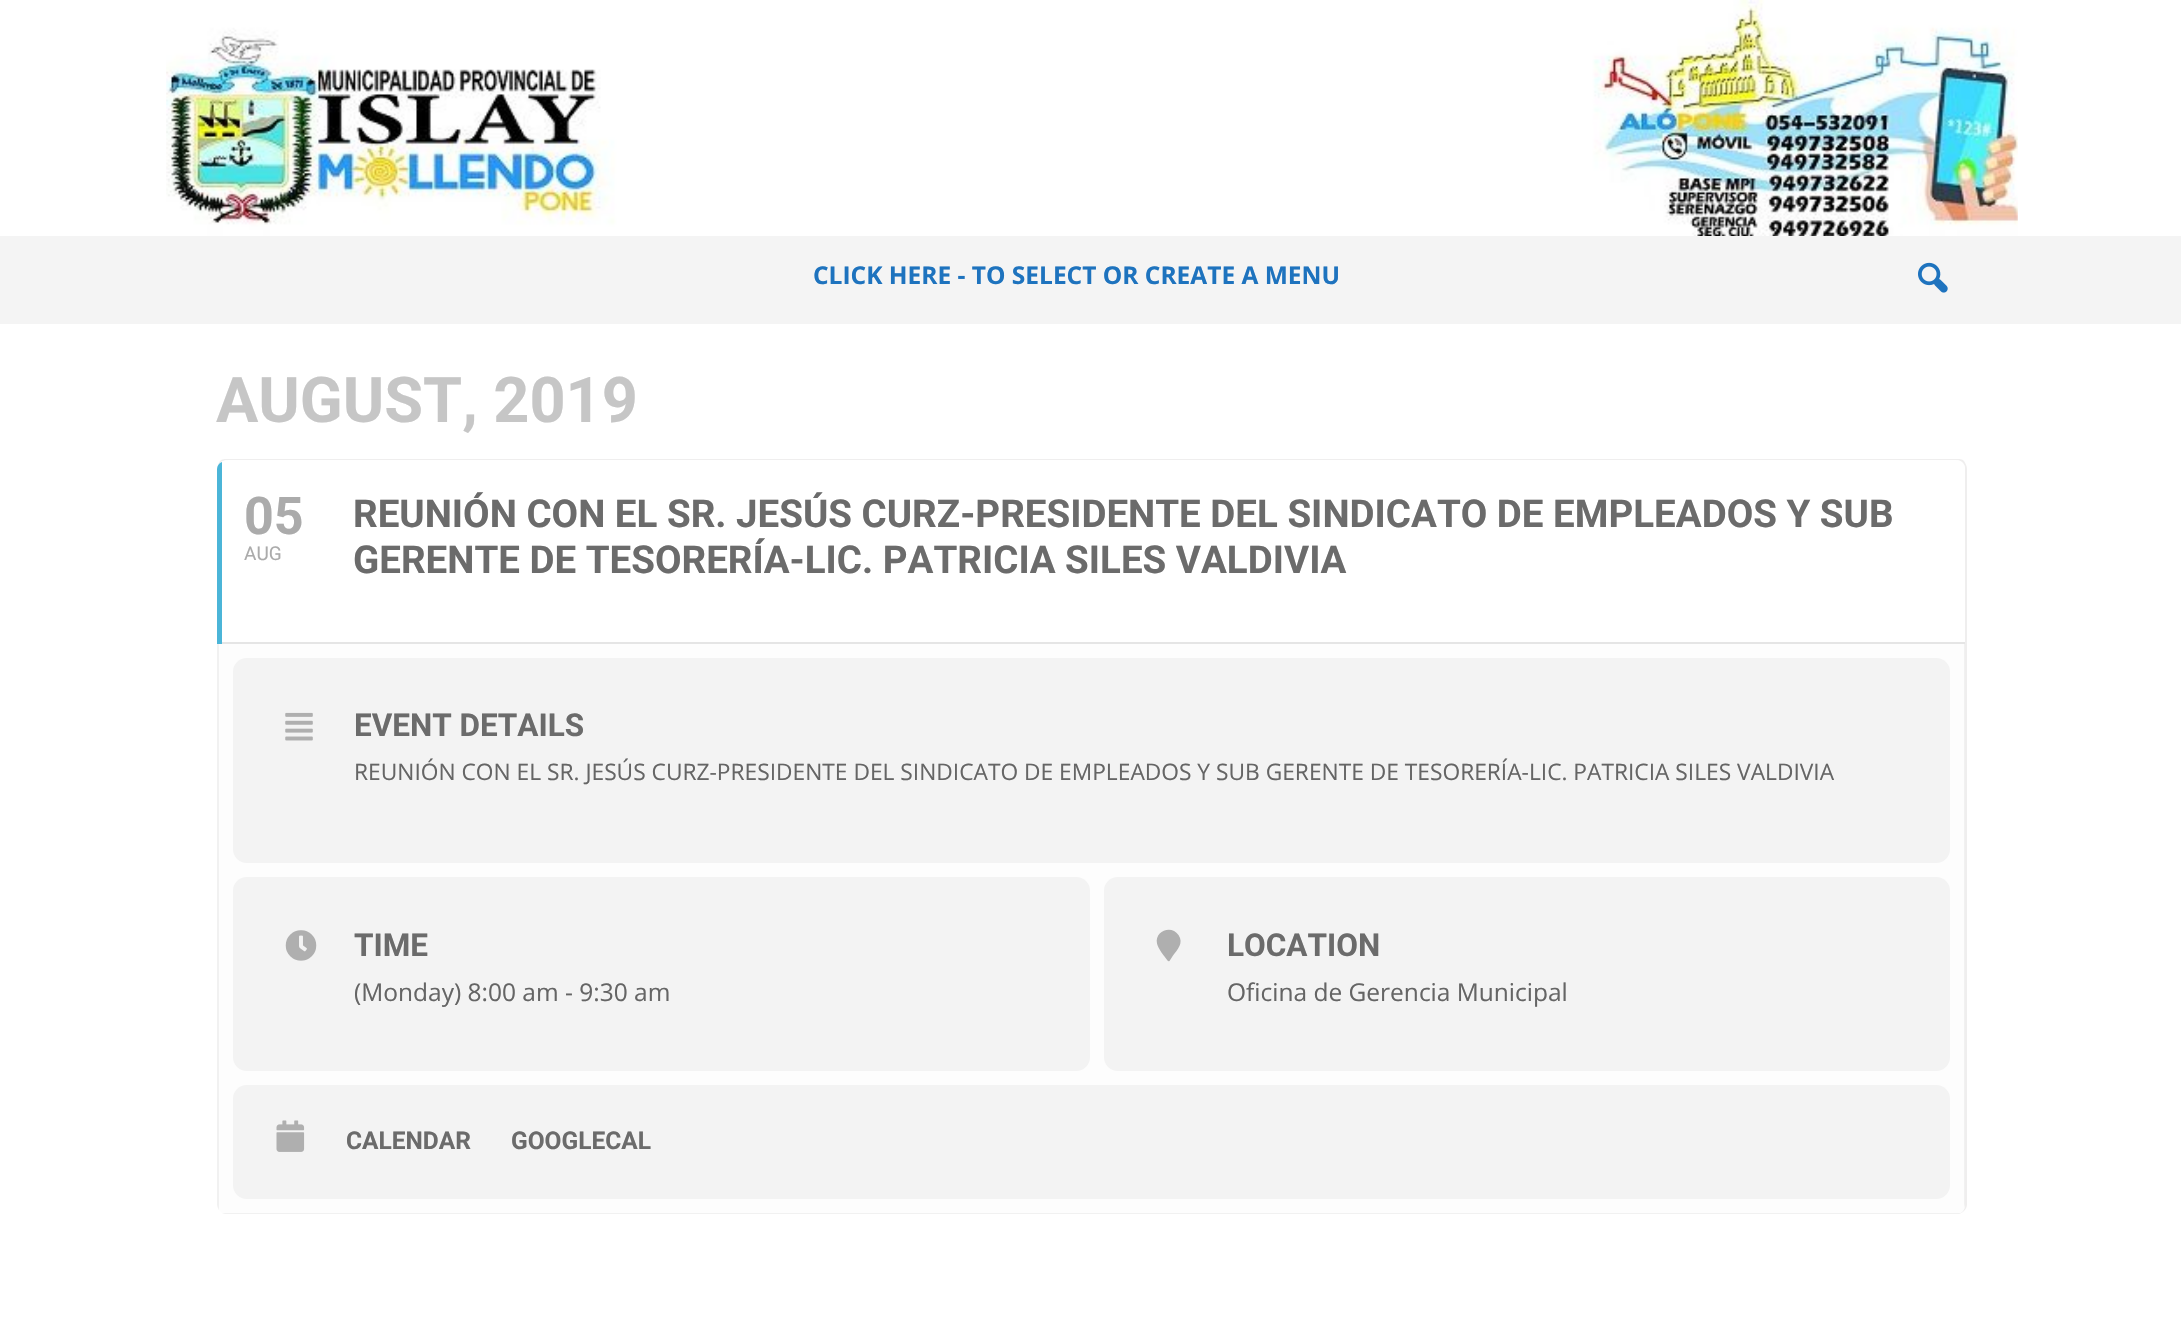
void draw(SkCanvas* canvas) {
    SkPaint paint;
    paint.setAntiAlias(true);
    auto face = [&](const char* family, int weight, float size, bool italic = false) {
        SkFontStyle style(weight, SkFontStyle::kNormal_Width,
            italic ? SkFontStyle::kItalic_Slant : SkFontStyle::kUpright_Slant);
        SkFont result(fontMgr->matchFamilyStyle(family, style), size);
        result.setSubpixel(true);
        return result;
    };
    auto write = [&](const char* s, float x, float y, const SkFont& font, SkColor color) {
        SkPaint ink(SkColor4f::FromColor(color));
        ink.setAntiAlias(true);
        canvas->drawString(s, x, y, font, ink);
    };
    auto block = [&](float x, float y, float w, float h, SkColor color) {
        SkPaint ink(SkColor4f::FromColor(color));
        ink.setAntiAlias(true);
        canvas->drawRect(SkRect::MakeXYWH(x, y, w, h), ink);
    };
    auto card = [&](float x, float y, float w, float h, float radius, SkColor color) {
        SkPaint ink(SkColor4f::FromColor(color));
        ink.setAntiAlias(true);
        canvas->drawRoundRect(SkRect::MakeXYWH(x, y, w, h), radius, radius, ink);
    };
    auto paste = [&](const char* path, float x, float y, float w, float h) {
        auto image = SkImages::DeferredFromEncodedData(SkData::MakeFromFileName(path));
        canvas->drawImageRect(image, SkRect::MakeXYWH(x, y, w, h), SkSamplingOptions());
    };
    canvas->clear(SK_ColorWHITE);
    paste("pic1.png", 166, 0, 1852, 236);
    block(0, 236, 2181, 88, SkColorSetRGB(244, 244, 244));
    auto kFont1 = face("Open Sans", 700, 24.5f);
    write("CLICK HERE - TO SELECT OR CREATE A MENU", 813, 284, kFont1, SkColorSetRGB(30, 115, 190));
    paste("pic2.png", 1918, 262, 30, 31);
    auto kFont2 = face("Roboto", 700, 63);
    write("AUGUST, 2019", 216, 422, kFont2, SkColorSetRGB(198, 198, 198));
    paint.setColor(SkColorSetRGB(239, 238, 238));
    canvas->drawPath(SkPathBuilder().moveTo(228, 460).lineTo(1956, 460).cubicTo(1961, 460, 1965, 464, 1965, 469).lineTo(1965, 1204).cubicTo(1965, 1210, 1961, 1214, 1956, 1214).cubicTo(1962, 1214, 1967, 1210, 1967, 1204).lineTo(1967, 469).cubicTo(1967, 466, 1965, 462, 1963, 460).cubicTo(1961, 459, 1960, 459, 1958, 459).lineTo(226, 459).cubicTo(224, 459, 223, 459, 221, 460).cubicTo(219, 462, 217, 466, 217, 469).cubicTo(217, 464, 222, 460, 228, 460).close().detach(), paint);
    paint.setColor(SK_ColorWHITE);
    canvas->drawPath(SkPathBuilder().moveTo(228, 460).cubicTo(222, 460, 217, 464, 217, 469).lineTo(217, 644).lineTo(1965, 644).lineTo(1965, 467).cubicTo(1964, 463, 1961, 460, 1956, 460).close().detach(), paint);
    paint.setColor(SkColorSetRGB(75, 181, 216));
    canvas->drawPath(SkPathBuilder().moveTo(222, 462).cubicTo(219, 463, 217, 466, 217, 469).lineTo(217, 644).lineTo(222, 644).close().detach(), paint);
    auto kFont3 = face("Roboto", 700, 52);
    write("05", 244, 534, kFont3, SkColorSetRGB(171, 171, 171));
    auto kFont4 = face("Roboto", 400, 19);
    write("AUG", 244, 560, kFont4, SkColorSetRGB(171, 171, 171));
    auto kFont5 = face("Roboto", 700, 38.5f);
    write("REUNIÓN CON EL SR. JESÚS CURZ-PRESIDENTE DEL SINDICATO DE EMPLEADOS Y SUB", 353, 527, kFont5, SkColorSetRGB(107, 107, 107));
    write("GERENTE DE TESORERÍA-LIC. PATRICIA SILES VALDIVIA", 353, 573, kFont5, SkColorSetRGB(107, 107, 107));
    block(222, 642, 1743, 2, SkColorSetRGB(229, 229, 229));
    paint.setColor(SkColorSetRGB(253, 253, 253));
    canvas->drawPath(SkPathBuilder().moveTo(217, 644).lineTo(217, 1204).cubicTo(217, 1210, 222, 1214, 228, 1214).lineTo(1956, 1214).cubicTo(1961, 1214, 1964, 1211, 1965, 1207).lineTo(1965, 644).close().detach(), paint);
    paint.setColor(SkColorSetRGB(241, 241, 241));
    canvas->drawPath(SkPathBuilder().moveTo(1964, 644).lineTo(1965, 644).lineTo(1965, 1204).lineTo(1964, 1209).close().detach(), paint);
    canvas->drawPath(SkPathBuilder().moveTo(1961, 1213).cubicTo(1960, 1214, 1958, 1214, 1956, 1214).lineTo(228, 1214).cubicTo(226, 1214, 224, 1214, 222, 1213).close().detach(), paint);
    canvas->drawPath(SkPathBuilder().moveTo(217, 644).lineTo(217, 1204).cubicTo(217, 1206, 218, 1208, 219, 1210).lineTo(219, 644).close().detach(), paint);
    card(233, 658, 1717, 205, 14, SkColorSetRGB(243, 243, 243));
    paste("pic3.png", 285, 712, 28, 29);
    auto kFont6 = face("Roboto", 700, 31.5f);
    write("EVENT DETAILS", 354, 736, kFont6, SkColorSetRGB(107, 107, 107));
    auto kFont7 = face("Open Sans", 400, 22.75f);
    write("REUNIÓN CON EL SR. JESÚS CURZ-PRESIDENTE DEL SINDICATO DE EMPLEADOS Y SUB GERENTE DE TESORERÍA-LIC. PATRICIA SILES VALDIVIA", 354, 780, kFont7, SkColorSetRGB(101, 101, 101));
    card(233, 877, 857, 194, 14, SkColorSetRGB(243, 243, 243));
    paste("pic4.png", 285, 930, 32, 31);
    write("TIME", 354, 956, kFont6, SkColorSetRGB(107, 107, 107));
    auto kFont8 = face("Open Sans", 400, 24.5f);
    write("(Monday) 8:00 am - 9:30 am", 354, 1001, kFont8, SkColorSetRGB(101, 101, 101));
    card(1104, 877, 846, 194, 14, SkColorSetRGB(243, 243, 243));
    paint.setColor(SkColorSetRGB(175, 175, 175));
    canvas->drawPath(SkPathBuilder().moveTo(1167.5f, 960.5f).cubicTo(1164.5f, 956.5f, 1158, 948.5f, 1157, 943.5f).cubicTo(1154.5f, 931, 1171.5f, 924.5f, 1178.5f, 935).cubicTo(1184, 943, 1177.5f, 949.5f, 1173, 955.5f).lineTo(1169.5f, 961).cubicTo(1168.5f, 961.5f, 1168, 961, 1167.5f, 960.5f).close().detach(), paint);
    write("LOCATION", 1227, 956, kFont6, SkColorSetRGB(107, 107, 107));
    write("Oficina de Gerencia Municipal", 1227, 1001, kFont8, SkColorSetRGB(101, 101, 101));
    card(233, 1085, 1717, 114, 14, SkColorSetRGB(243, 243, 243));
    paste("pic5.png", 276, 1120, 29, 32);
    auto kFont9 = face("Roboto", 700, 24.5f);
    write("CALENDAR", 346, 1149, kFont9, SkColorSetRGB(107, 107, 107));
    write("GOOGLECAL", 511, 1149, kFont9, SkColorSetRGB(107, 107, 107));
}
